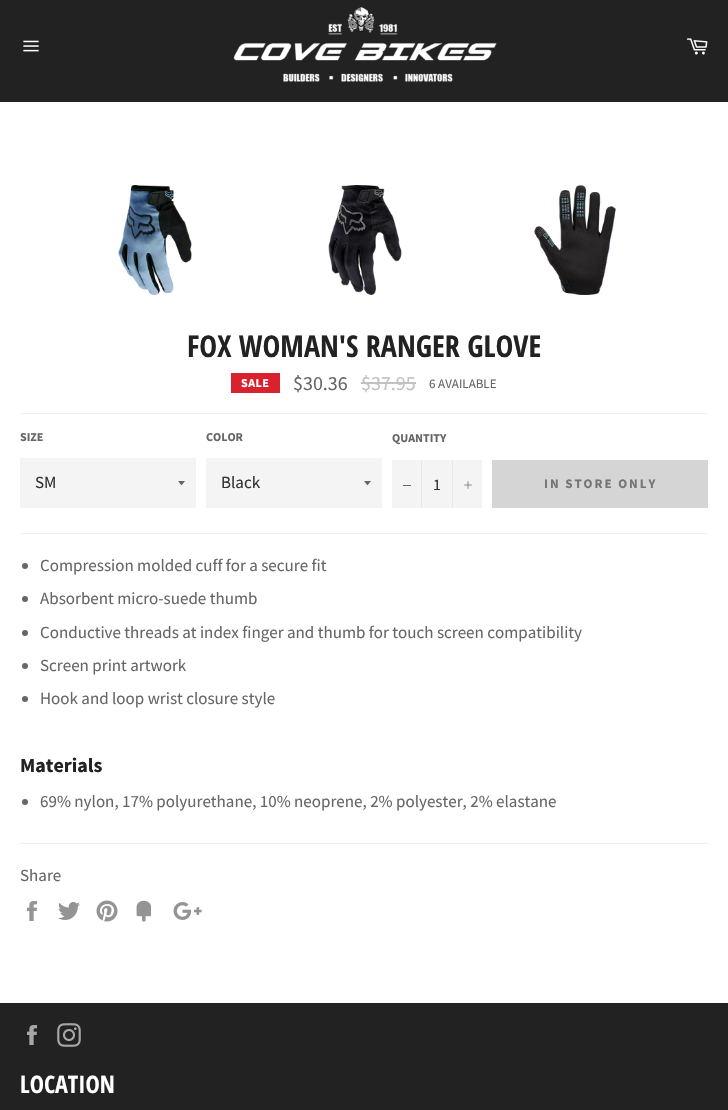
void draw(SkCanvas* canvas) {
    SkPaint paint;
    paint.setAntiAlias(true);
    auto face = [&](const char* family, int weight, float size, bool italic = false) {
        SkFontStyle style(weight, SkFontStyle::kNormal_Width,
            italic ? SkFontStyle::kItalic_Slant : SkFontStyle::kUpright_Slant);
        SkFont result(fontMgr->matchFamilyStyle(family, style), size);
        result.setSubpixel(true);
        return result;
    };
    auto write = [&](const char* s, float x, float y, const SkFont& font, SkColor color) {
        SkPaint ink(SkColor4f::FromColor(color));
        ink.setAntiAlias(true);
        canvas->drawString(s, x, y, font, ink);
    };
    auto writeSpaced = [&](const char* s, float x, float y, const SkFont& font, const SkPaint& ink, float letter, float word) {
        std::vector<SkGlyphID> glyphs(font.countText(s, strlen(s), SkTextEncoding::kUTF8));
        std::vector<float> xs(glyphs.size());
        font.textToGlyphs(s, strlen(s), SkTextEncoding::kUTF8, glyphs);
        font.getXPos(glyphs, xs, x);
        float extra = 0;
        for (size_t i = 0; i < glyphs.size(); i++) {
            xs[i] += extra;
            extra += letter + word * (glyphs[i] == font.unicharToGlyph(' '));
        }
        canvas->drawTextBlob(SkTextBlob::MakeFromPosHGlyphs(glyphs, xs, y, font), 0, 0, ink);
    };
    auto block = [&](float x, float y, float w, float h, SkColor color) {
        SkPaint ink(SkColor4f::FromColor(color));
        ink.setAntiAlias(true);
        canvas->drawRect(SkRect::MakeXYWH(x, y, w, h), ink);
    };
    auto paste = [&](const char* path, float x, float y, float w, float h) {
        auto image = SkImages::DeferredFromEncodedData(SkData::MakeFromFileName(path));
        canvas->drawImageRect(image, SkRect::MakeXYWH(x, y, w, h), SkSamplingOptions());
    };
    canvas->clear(SK_ColorWHITE);
    block(0, 0, 728, 102, SkColorSetRGB(34, 34, 34));
    paste("pic1.png", 23, 40, 16, 12);
    paste("pic2.png", 233, 7, 264, 75);
    paste("pic3.png", 686, 38, 22, 17);
    paste("pic4.png", 118, 185, 74, 110);
    paste("pic5.png", 328, 185, 74, 110);
    paste("pic6.png", 534, 185, 82, 110);
    auto kFont1 = face("Open Sans Condensed", 700, 30);
    write("FOX WOMAN'S RANGER GLOVE", 187, 357, kFont1, SkColorSetRGB(34, 34, 34));
    block(231, 373, 49, 20, SkColorSetRGB(216, 35, 47));
    auto kFont2 = face("Source Sans Pro", 700, 12);
    paint.setColor(SK_ColorWHITE);
    writeSpaced("SALE", 241, 387, kFont2, paint, 0.5f, 0);
    auto kFont3 = face("Source Sans Pro", 400, 20);
    write("$30.36", 293, 390, kFont3, SkColorSetRGB(102, 102, 102));
    write("$37.95", 361, 390, kFont3, SkColorSetRGB(194, 194, 194));
    block(361, 382, 55, 2, SkColorSetRGB(194, 194, 194));
    auto kFont4 = face("Source Sans Pro", 400, 13);
    write("6 AVAILABLE", 429, 388, kFont4, SkColorSetRGB(102, 102, 102));
    block(20, 413, 688, 1, SkColorSetRGB(240, 240, 240));
    write("SIZE", 20, 441, kFont2, SkColorSetRGB(102, 102, 102));
    block(20, 458, 176, 50, SkColorSetRGB(244, 244, 244));
    paint.setColor(SkColorSetRGB(102, 102, 102));
    canvas->drawPath(SkPathBuilder().moveTo(178, 481).cubicTo(182.5f, 486.5f, 180.5f, 486.5f, 185, 481).close().detach(), paint);
    auto kFont5 = face("Source Sans Pro", 400, 17);
    write("SM", 35, 488, kFont5, SkColorSetRGB(51, 51, 51));
    write("COLOR", 206, 441, kFont2, SkColorSetRGB(102, 102, 102));
    block(206, 458, 176, 50, SkColorSetRGB(244, 244, 244));
    canvas->drawPath(SkPathBuilder().moveTo(364, 481).cubicTo(368.5f, 486.5f, 366.5f, 486.5f, 371, 481).close().detach(), paint);
    write("Black", 221, 488, kFont5, SkColorSetRGB(51, 51, 51));
    write("QUANTITY", 392, 442, kFont2, SkColorSetRGB(102, 102, 102));
    block(392, 460, 90, 48, SkColorSetRGB(244, 244, 244));
    block(421, 460, 1, 48, SkColorSetRGB(231, 231, 231));
    block(403, 485, 8, 1, SkColorSetRGB(102, 102, 102));
    auto kFont6 = face("Source Sans Pro", 400, 16);
    write("1", 433, 490, kFont6, SkColorSetRGB(51, 51, 51));
    block(452, 460, 1, 48, SkColorSetRGB(231, 231, 231));
    paste("pic7.png", 464, 481, 8, 8);
    block(492, 460, 216, 48, SkColorSetRGB(213, 213, 213));
    auto kFont7 = face("Source Sans Pro", 700, 13);
    paint.setColor(SkColorSetRGB(117, 117, 117));
    writeSpaced("IN STORE ONLY", 544, 488, kFont7, paint, 2, 0);
    block(20, 533, 688, 1, SkColorSetRGB(240, 240, 240));
    paint.setColor(SkColorSetRGB(102, 102, 102));
    canvas->drawCircle(25, 566, 3, paint);
    write("Compression molded cuff for a secure fit", 40, 571, kFont5, SkColorSetRGB(102, 102, 102));
    canvas->drawCircle(25, 599, 3, paint);
    write("Absorbent micro-suede thumb", 40, 604, kFont5, SkColorSetRGB(102, 102, 102));
    canvas->drawCircle(25, 633, 3, paint);
    write("Conductive threads at index finger and thumb for touch screen compatibility", 40, 638, kFont5, SkColorSetRGB(102, 102, 102));
    canvas->drawCircle(25, 666, 3, paint);
    write("Screen print artwork", 40, 671, kFont5, SkColorSetRGB(102, 102, 102));
    canvas->drawCircle(25, 699, 3, paint);
    write("Hook and loop wrist closure style", 40, 704, kFont5, SkColorSetRGB(102, 102, 102));
    auto kFont8 = face("Source Sans Pro", 700, 20);
    write("Materials", 20, 772, kFont8, SkColorSetRGB(34, 34, 34));
    canvas->drawCircle(25, 802, 3, paint);
    write("69% nylon, 17% polyurethane, 10% neoprene, 2% polyester, 2% elastane", 40, 807, kFont5, SkColorSetRGB(102, 102, 102));
    block(20, 843, 688, 1, SkColorSetRGB(240, 240, 240));
    write("Share", 20, 881, kFont5, SkColorSetRGB(102, 102, 102));
    paste("pic8.png", 27, 901, 10, 20);
    paste("pic9.png", 58, 902, 22, 18);
    paste("pic10.png", 96, 900, 22, 22);
    paste("pic11.png", 136, 900, 16, 22);
    paste("pic12.png", 173, 902, 29, 18);
    block(0, 1003, 728, 107, SkColorSetRGB(34, 34, 34));
    paste("pic13.png", 27, 1025, 10, 20);
    paste("pic14.png", 57, 1023, 24, 24);
    auto kFont9 = face("Open Sans Condensed", 700, 24);
    write("LOCATION", 20, 1093, kFont9, SK_ColorWHITE);
}
